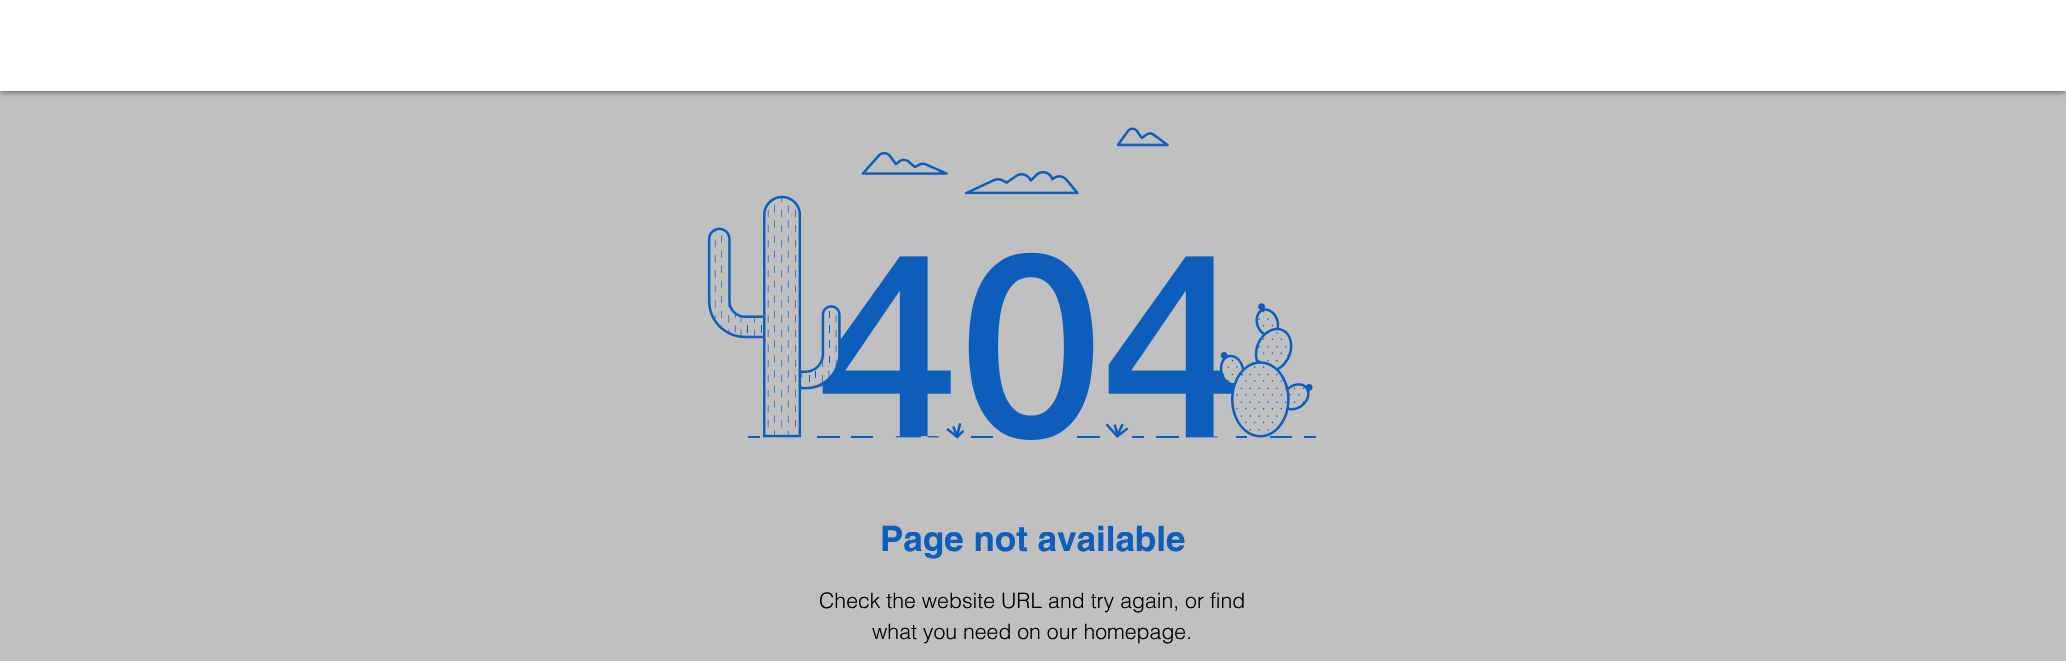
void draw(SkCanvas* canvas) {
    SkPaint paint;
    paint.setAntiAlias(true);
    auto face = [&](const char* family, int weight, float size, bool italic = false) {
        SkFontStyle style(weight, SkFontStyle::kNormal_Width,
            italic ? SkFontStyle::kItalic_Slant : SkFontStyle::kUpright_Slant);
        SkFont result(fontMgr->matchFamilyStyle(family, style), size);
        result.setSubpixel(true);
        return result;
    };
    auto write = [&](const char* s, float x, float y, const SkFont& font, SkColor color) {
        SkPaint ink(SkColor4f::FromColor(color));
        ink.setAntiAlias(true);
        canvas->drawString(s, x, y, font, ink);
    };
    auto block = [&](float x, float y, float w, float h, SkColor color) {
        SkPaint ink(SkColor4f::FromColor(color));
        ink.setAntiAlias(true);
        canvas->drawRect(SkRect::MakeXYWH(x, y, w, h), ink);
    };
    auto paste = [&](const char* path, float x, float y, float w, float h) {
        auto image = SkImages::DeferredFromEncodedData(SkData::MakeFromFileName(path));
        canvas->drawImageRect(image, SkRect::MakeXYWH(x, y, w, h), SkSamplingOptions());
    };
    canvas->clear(SkColorSetRGB(191, 191, 191));
    paint.setColor(SkColorSetARGB(179, 0, 0, 0));
    paint.setMaskFilter(SkMaskFilter::MakeBlur(kNormal_SkBlurStyle, 3));
    canvas->drawRect(SkRect::MakeXYWH(0, 0, 2066, 91), paint);
    paint.setMaskFilter(nullptr);
    block(0, 0, 2066, 91, SK_ColorWHITE);
    paste("pic1.png", 707, 127, 609, 313);
    auto kFont1 = face("helvetica", 700, 35);
    write("Page not available", 880, 551, kFont1, SkColorSetRGB(13, 94, 186));
    auto kFont2 = face("helvetica", 300, 21.25f);
    write("Check the website URL and try again, or find", 819, 608, kFont2, SK_ColorBLACK);
    write("what you need on our homepage.", 872, 639, kFont2, SK_ColorBLACK);
}
